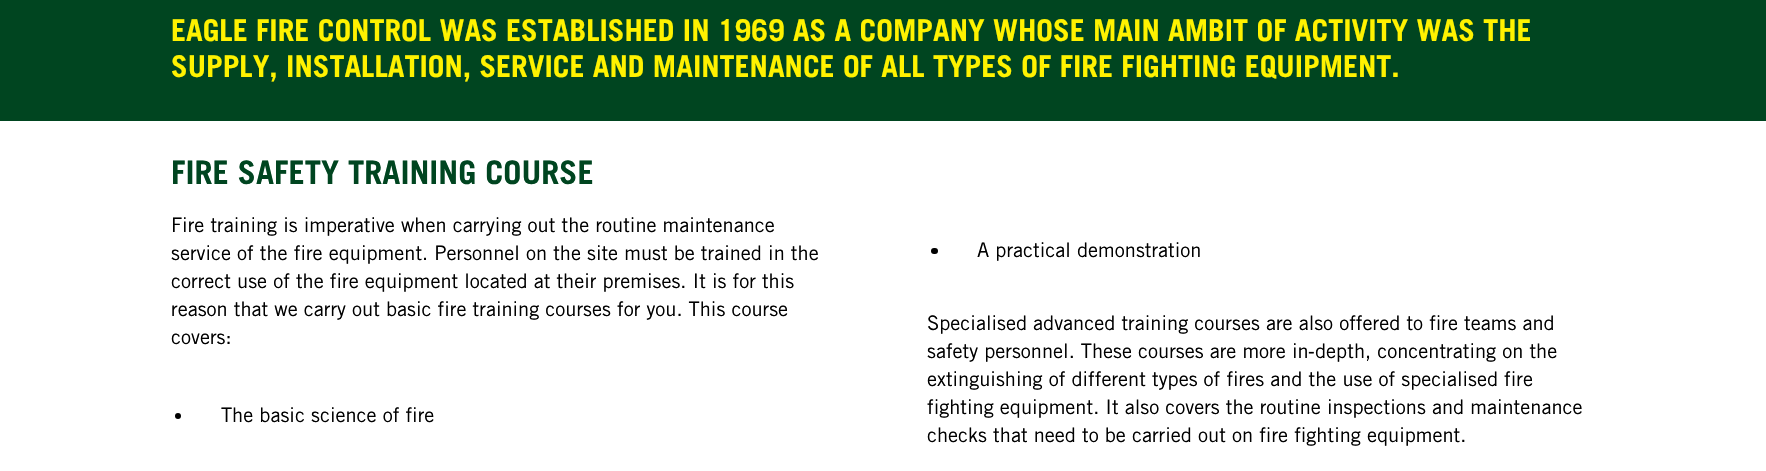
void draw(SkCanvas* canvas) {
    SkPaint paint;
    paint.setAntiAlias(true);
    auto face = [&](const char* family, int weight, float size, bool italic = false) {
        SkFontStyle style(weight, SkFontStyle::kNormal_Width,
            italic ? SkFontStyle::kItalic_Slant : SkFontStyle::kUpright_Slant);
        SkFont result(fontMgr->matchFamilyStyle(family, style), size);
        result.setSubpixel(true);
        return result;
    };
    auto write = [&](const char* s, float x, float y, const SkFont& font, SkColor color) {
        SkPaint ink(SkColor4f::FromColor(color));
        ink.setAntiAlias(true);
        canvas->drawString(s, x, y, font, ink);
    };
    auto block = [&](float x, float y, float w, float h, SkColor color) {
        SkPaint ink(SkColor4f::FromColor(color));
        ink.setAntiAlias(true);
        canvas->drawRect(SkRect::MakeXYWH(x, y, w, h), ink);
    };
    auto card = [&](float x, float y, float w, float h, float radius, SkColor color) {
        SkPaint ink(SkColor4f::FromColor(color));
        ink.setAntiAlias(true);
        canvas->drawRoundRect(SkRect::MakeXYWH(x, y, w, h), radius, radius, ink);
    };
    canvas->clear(SK_ColorWHITE);
    block(0, 0, 1766, 121, SkColorSetRGB(0, 69, 32));
    auto kFont1 = face("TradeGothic", 700, 30);
    write("EAGLE FIRE CONTROL WAS ESTABLISHED IN 1969 AS A COMPANY WHOSE MAIN AMBIT OF ACTIVITY WAS THE", 171, 41, kFont1, SkColorSetRGB(255, 242, 0));
    write("SUPPLY, INSTALLATION, SERVICE AND MAINTENANCE OF ALL TYPES OF FIRE FIGHTING EQUIPMENT.", 171, 77, kFont1, SkColorSetRGB(255, 242, 0));
    auto kFont2 = face("TradeGothic", 700, 32.5f);
    write("FIRE SAFETY TRAINING COURSE", 171, 184, kFont2, SkColorSetRGB(0, 69, 32));
    auto kFont3 = face("TradeGothic", 400, 20);
    write("Fire training is imperative when carrying out the routine maintenance", 171, 232, kFont3, SK_ColorBLACK);
    write("service of the fire equipment. Personnel on the site must be trained in the", 171, 260, kFont3, SK_ColorBLACK);
    write("correct use of the fire equipment located at their premises. It is for this", 171, 288, kFont3, SK_ColorBLACK);
    write("reason that we carry out basic fire training courses for you. This course", 171, 316, kFont3, SK_ColorBLACK);
    write("covers:", 171, 344, kFont3, SK_ColorBLACK);
    card(931, 248, 7, 6, 3, SK_ColorBLACK);
    write("A practical demonstration", 977, 257, kFont3, SK_ColorBLACK);
    paint.setColor(SK_ColorBLACK);
    canvas->drawCircle(178, 416, 3, paint);
    write("The basic science of fire", 221, 422, kFont3, SK_ColorBLACK);
    write("Specialised advanced training courses are also offered to fire teams and", 927, 330, kFont3, SK_ColorBLACK);
    write("safety personnel. These courses are more in", 927, 358, kFont3, SK_ColorBLACK);
    auto kFont4 = face("Liberation Sans", 400, 20);
    write("-", 1308, 358, kFont4, SK_ColorBLACK);
    write("depth, concentrating on the", 1315, 358, kFont3, SK_ColorBLACK);
    write("extinguishing of different types of fires and the use of specialised fire", 927, 386, kFont3, SK_ColorBLACK);
    write("fighting equipment. It also covers the routine inspections and maintenance", 927, 414, kFont3, SK_ColorBLACK);
    write("checks that need to be carried out on fire fighting equipment.", 927, 442, kFont3, SK_ColorBLACK);
}
